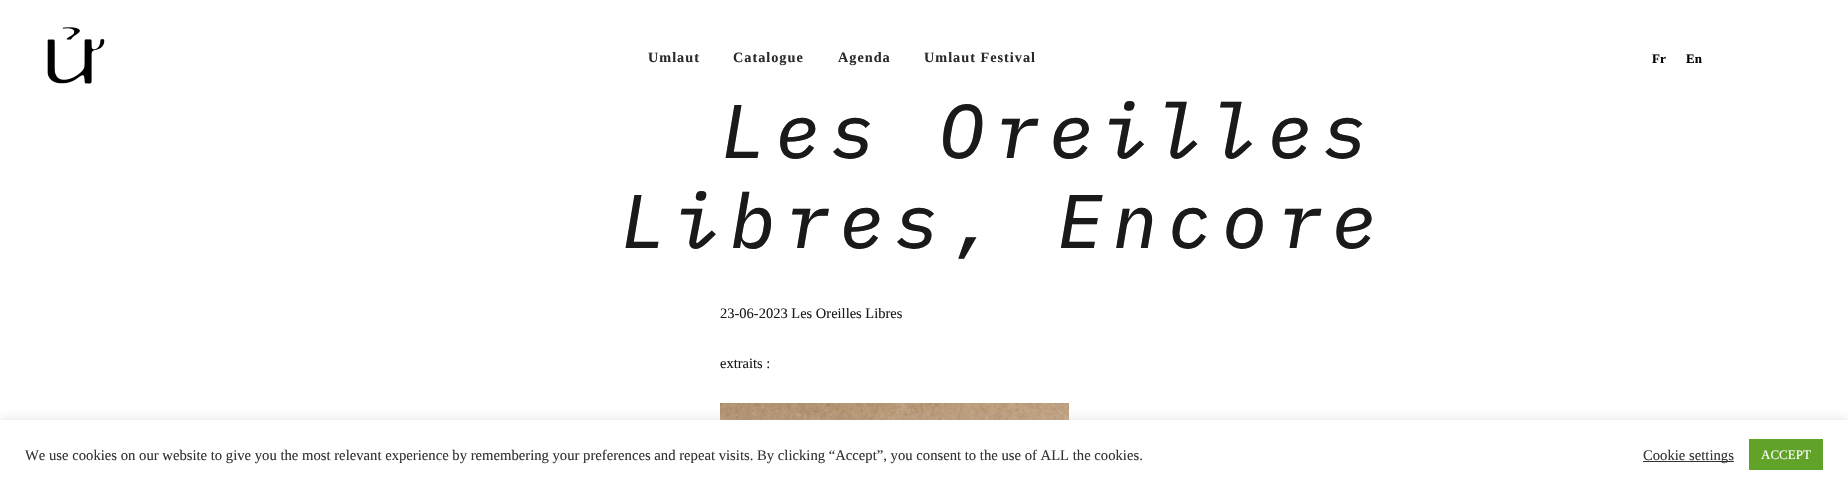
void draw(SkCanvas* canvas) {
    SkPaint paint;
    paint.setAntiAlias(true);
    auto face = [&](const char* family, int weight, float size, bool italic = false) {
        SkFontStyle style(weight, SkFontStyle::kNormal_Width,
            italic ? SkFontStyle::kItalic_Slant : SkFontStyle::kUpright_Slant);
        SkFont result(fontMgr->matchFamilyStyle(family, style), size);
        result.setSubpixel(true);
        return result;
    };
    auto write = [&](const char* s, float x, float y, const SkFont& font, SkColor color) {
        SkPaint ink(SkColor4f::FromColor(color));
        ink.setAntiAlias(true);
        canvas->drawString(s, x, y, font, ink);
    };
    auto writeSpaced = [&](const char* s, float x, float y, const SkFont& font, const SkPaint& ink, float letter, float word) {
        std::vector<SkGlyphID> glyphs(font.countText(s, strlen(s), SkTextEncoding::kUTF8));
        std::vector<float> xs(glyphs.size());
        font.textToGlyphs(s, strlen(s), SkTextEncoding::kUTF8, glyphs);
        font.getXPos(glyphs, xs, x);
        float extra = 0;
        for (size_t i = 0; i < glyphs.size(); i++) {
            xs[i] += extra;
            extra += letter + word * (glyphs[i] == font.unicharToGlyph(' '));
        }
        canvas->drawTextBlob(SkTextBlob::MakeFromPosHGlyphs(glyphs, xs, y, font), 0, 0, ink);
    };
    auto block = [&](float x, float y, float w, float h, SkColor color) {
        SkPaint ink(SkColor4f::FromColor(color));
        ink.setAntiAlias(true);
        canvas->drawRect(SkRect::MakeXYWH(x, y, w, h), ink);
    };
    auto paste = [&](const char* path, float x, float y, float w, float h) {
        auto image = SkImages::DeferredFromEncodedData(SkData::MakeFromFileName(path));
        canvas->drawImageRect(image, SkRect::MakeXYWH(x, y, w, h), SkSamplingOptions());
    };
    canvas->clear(SK_ColorWHITE);
    paste("pic1.png", 47, 27, 58, 57);
    auto kFont1 = face("Liberation Serif", 700, 14.25f);
    paint.setColor(SkColorSetRGB(43, 43, 43));
    writeSpaced("Umlaut", 648, 62, kFont1, paint, 1, 0);
    writeSpaced("Catalogue", 733, 62, kFont1, paint, 1, 0);
    writeSpaced("Agenda", 838, 62, kFont1, paint, 1, 0);
    writeSpaced("Umlaut Festival", 924, 62, kFont1, paint, 1, 0);
    auto kFont2 = face("Liberation Serif", 700, 13);
    write("Fr", 1652, 63, kFont2, SK_ColorBLACK);
    write("En", 1686, 63, kFont2, SK_ColorBLACK);
    auto kFont3 = face("IBM Plex Mono", 500, 76, true);
    paint.setColor(SkColorSetRGB(26, 26, 26));
    writeSpaced("Les Oreilles", 720, 158, kFont3, paint, 9.1f, 0);
    writeSpaced("Libres, Encore", 620, 248, kFont3, paint, 9.1f, 0);
    auto kFont4 = face("Liberation Serif", 400, 14.5f);
    write("23-06-2023 Les Oreilles Libres", 720, 318, kFont4, SkColorSetRGB(26, 26, 26));
    write("extraits :", 720, 368, kFont4, SkColorSetRGB(26, 26, 26));
    paste("pic2.png", 720, 403, 349, 17);
    paint.setColor(SkColorSetARGB(77, 172, 171, 171));
    paint.setMaskFilter(SkMaskFilter::MakeBlur(kNormal_SkBlurStyle, 5));
    canvas->drawRect(SkRect::MakeXYWH(0, 419, 1848, 69), paint);
    paint.setMaskFilter(nullptr);
    block(0, 420, 1848, 69, SK_ColorWHITE);
    auto kFont5 = face("Liberation Serif", 400, 14.67f);
    write("We use cookies on our website to give you the most relevant experience by remembering your preferences and repeat visits. By clicking “Accept”, you consent to the use of ALL the cookies.", 25, 460, kFont5, SkColorSetRGB(51, 51, 51));
    block(1643, 461, 91, 1, SkColorSetRGB(51, 51, 51));
    write("Cookie settings", 1643, 460, kFont5, SkColorSetRGB(51, 51, 51));
    block(1749, 439, 74, 31, SkColorSetRGB(97, 162, 41));
    auto kFont6 = face("Liberation Serif", 400, 13);
    write("ACCEPT", 1761, 459, kFont6, SK_ColorWHITE);
}
